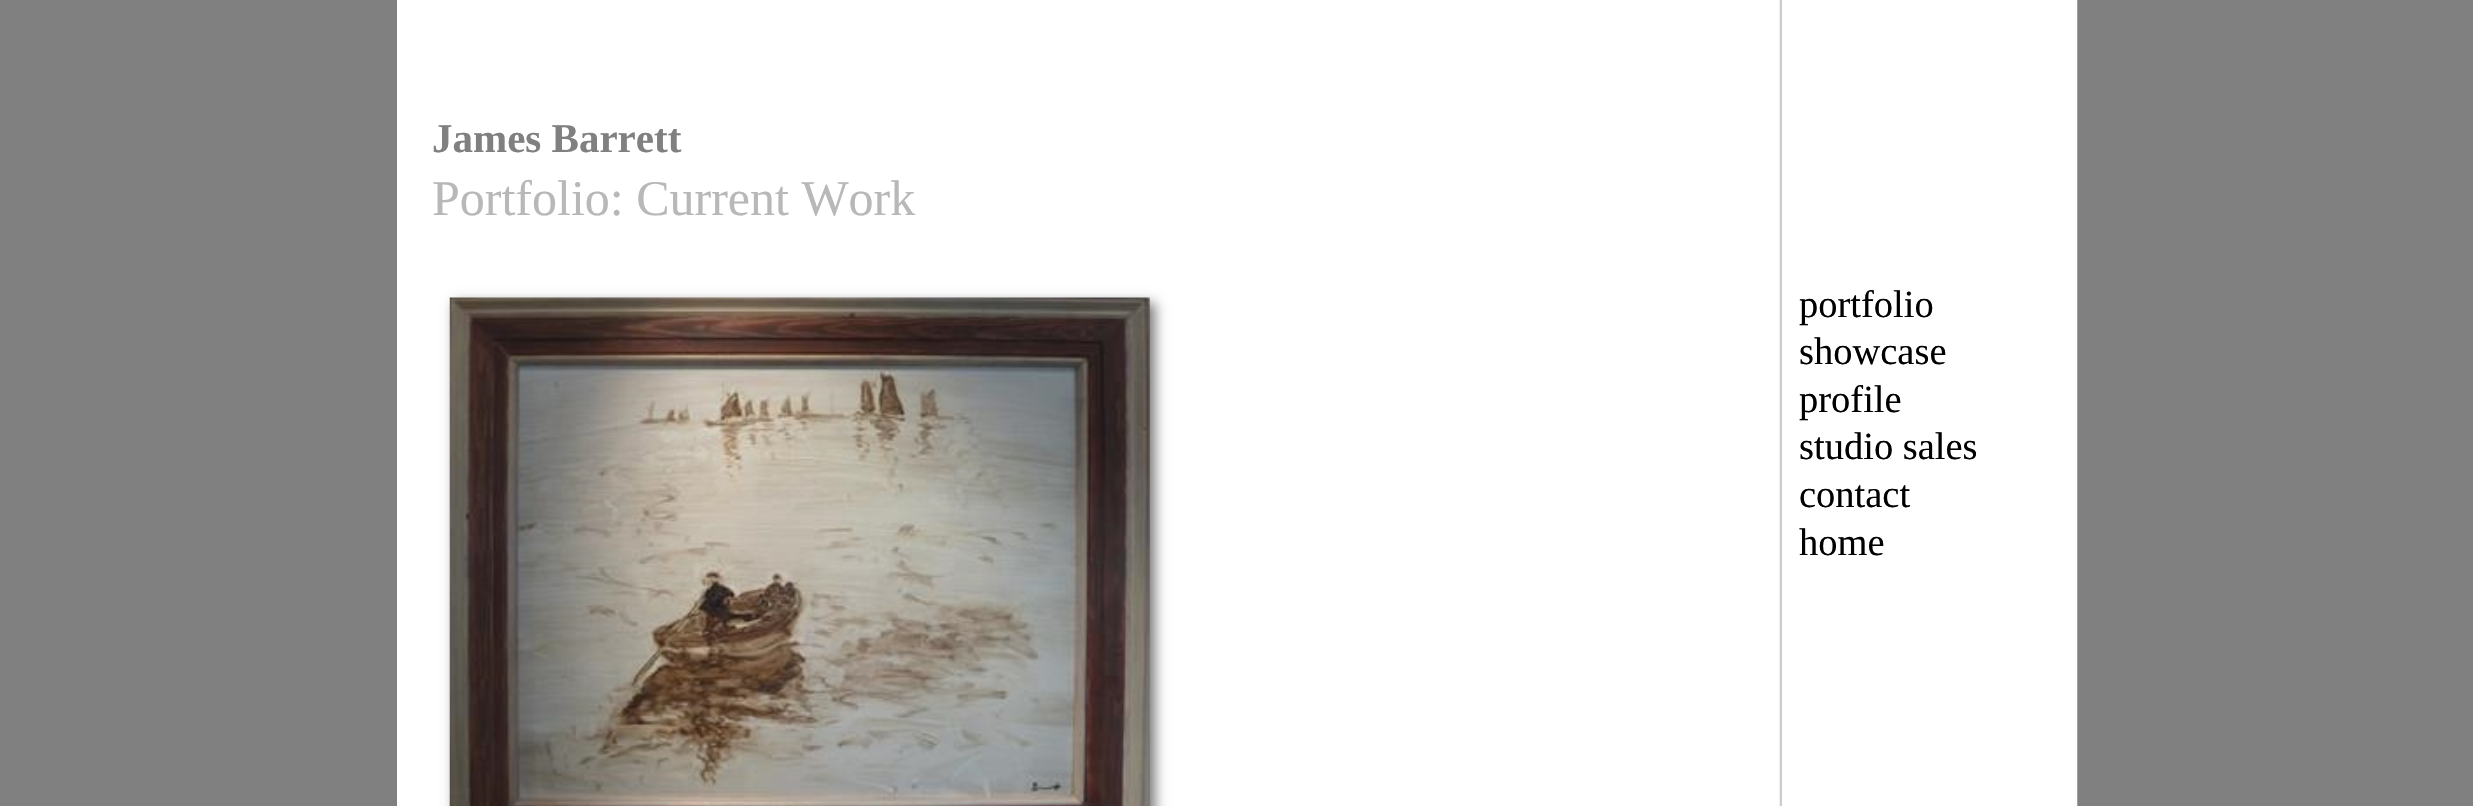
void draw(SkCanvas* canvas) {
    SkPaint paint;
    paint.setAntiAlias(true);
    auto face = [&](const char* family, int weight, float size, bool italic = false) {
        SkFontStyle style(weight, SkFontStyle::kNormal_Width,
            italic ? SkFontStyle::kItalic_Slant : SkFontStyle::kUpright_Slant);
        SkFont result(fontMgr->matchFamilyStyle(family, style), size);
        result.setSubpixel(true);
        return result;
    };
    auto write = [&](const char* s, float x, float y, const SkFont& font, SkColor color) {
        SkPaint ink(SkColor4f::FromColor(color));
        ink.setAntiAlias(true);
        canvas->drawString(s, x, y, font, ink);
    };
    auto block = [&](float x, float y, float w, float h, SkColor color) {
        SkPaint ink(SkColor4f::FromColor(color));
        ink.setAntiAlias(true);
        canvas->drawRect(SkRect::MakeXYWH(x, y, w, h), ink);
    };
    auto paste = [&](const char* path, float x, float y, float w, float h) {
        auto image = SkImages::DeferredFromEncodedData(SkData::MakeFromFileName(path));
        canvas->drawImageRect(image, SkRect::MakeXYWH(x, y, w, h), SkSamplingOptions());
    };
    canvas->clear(SkColorSetRGB(128, 128, 128));
    block(397, 0, 1382, 806, SK_ColorWHITE);
    paste("pic1.png", 1779, 0, 299, 806);
    auto kFont1 = face("Liberation Serif", 700, 41);
    write("James Barrett", 432, 152, kFont1, SkColorSetRGB(128, 128, 128));
    auto kFont2 = face("Liberation Serif", 400, 50);
    write("Portfolio: Current Work", 432, 215, kFont2, SkColorSetRGB(184, 184, 184));
    paint.setColor(SkColorSetRGB(119, 119, 119));
    paint.setMaskFilter(SkMaskFilter::MakeBlur(kNormal_SkBlurStyle, 6));
    canvas->drawRect(SkRect::MakeXYWH(455, 303, 700, 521), paint);
    paint.setMaskFilter(nullptr);
    paste("pic2.png", 449, 297, 701, 509);
    block(1780, 0, 2, 806, SkColorSetRGB(204, 204, 204));
    auto kFont3 = face("Liberation Serif", 400, 38.5f);
    write("portfolio", 1799, 317, kFont3, SK_ColorBLACK);
    write("showcase", 1799, 364, kFont3, SK_ColorBLACK);
    write("profile", 1799, 412, kFont3, SK_ColorBLACK);
    write("studio sales", 1799, 459, kFont3, SK_ColorBLACK);
    write("contact", 1799, 507, kFont3, SK_ColorBLACK);
    write("home", 1799, 555, kFont3, SK_ColorBLACK);
}
